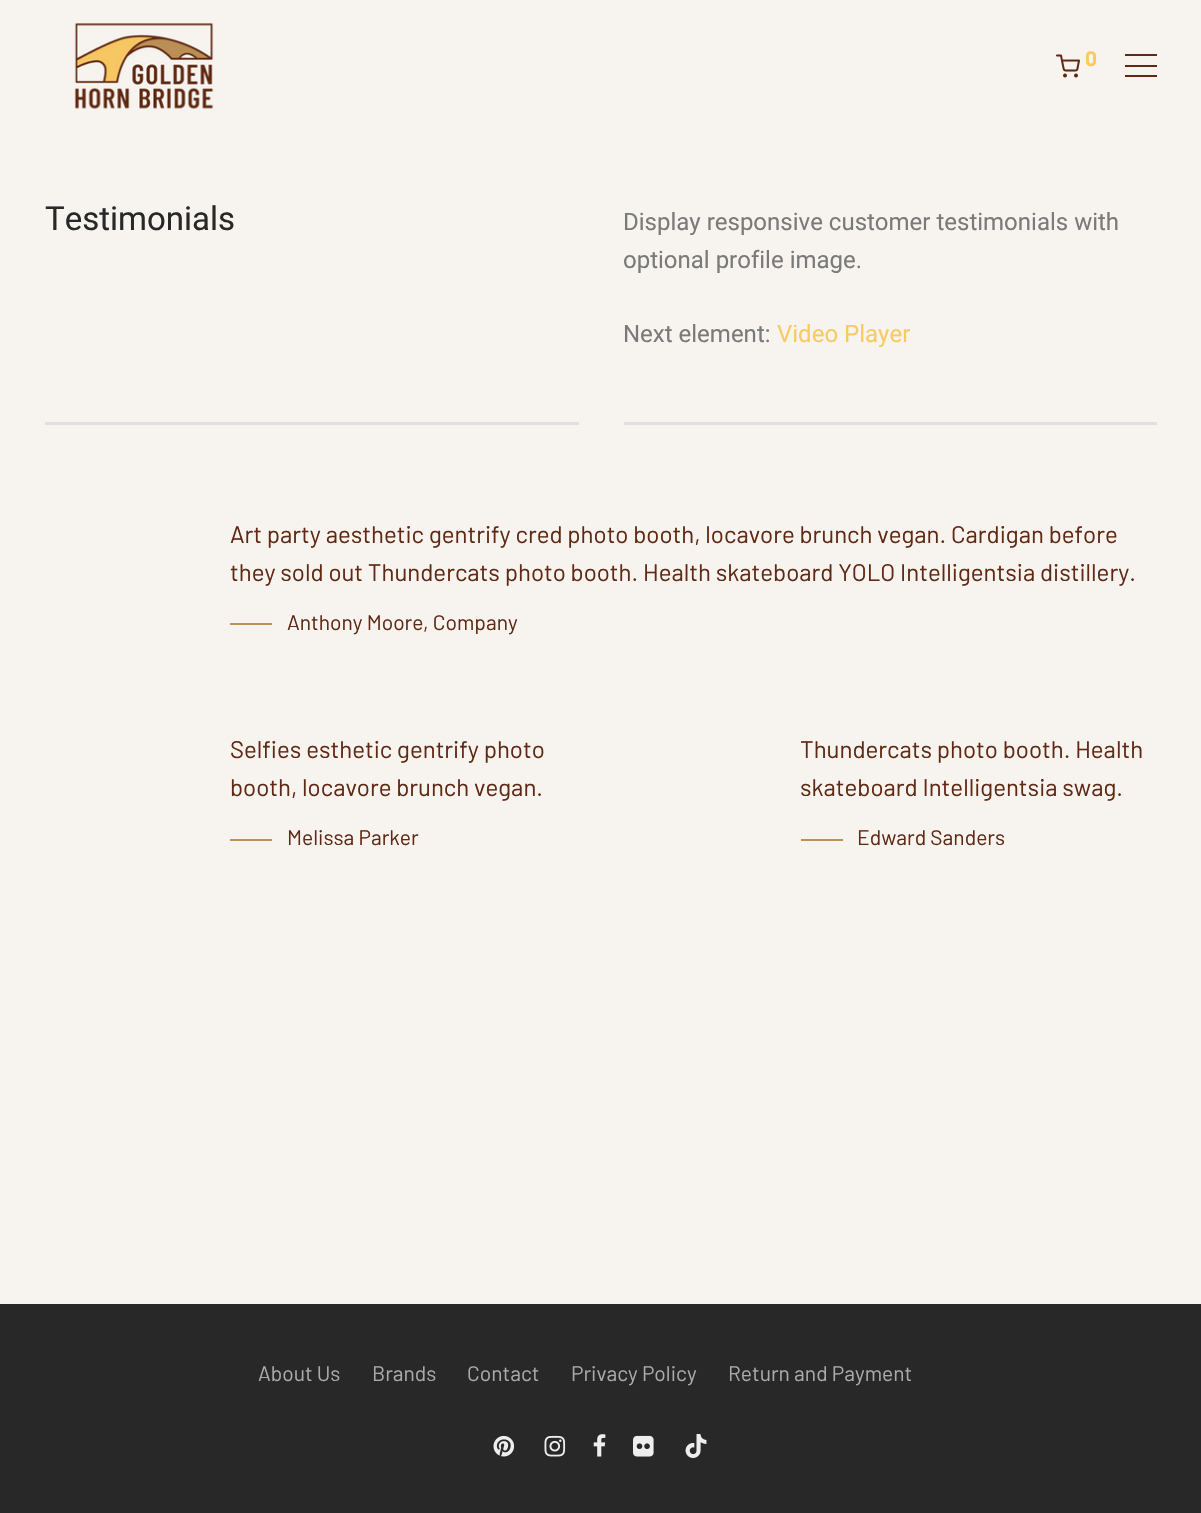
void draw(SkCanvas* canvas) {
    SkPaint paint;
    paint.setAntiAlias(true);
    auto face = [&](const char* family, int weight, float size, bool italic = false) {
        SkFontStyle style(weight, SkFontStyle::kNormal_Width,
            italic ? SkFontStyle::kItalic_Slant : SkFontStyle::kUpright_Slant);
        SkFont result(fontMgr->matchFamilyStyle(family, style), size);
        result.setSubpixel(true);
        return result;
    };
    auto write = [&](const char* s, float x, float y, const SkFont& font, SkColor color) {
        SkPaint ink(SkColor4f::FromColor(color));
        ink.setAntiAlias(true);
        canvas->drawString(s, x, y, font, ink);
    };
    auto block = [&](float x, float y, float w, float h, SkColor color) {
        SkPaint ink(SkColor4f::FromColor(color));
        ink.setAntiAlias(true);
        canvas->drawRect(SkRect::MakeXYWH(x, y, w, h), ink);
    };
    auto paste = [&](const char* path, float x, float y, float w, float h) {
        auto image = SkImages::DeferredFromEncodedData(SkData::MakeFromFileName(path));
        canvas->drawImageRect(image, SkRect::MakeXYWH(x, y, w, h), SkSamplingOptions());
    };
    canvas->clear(SkColorSetRGB(247, 244, 240));
    paste("pic1.png", 74, 23, 140, 86);
    paste("pic2.png", 1056, 54, 24, 24);
    auto kFont1 = face("Barlow", 700, 21);
    write("0", 1085, 66, kFont1, SkColorSetRGB(247, 202, 100));
    block(1125, 54, 32, 2, SkColorSetRGB(96, 41, 20));
    block(1125, 65, 32, 2, SkColorSetRGB(96, 41, 20));
    block(1125, 75, 32, 2, SkColorSetRGB(96, 41, 20));
    auto kFont2 = face("Roboto", 400, 33);
    write("Testimonials", 45, 230, kFont2, SkColorSetRGB(40, 40, 40));
    auto kFont3 = face("Roboto", 400, 24);
    write("Display responsive customer testimonials with", 623, 230, kFont3, SkColorSetRGB(122, 122, 122));
    write("optional profile image.", 623, 268, kFont3, SkColorSetRGB(122, 122, 122));
    write("Next element:", 623, 342, kFont3, SkColorSetRGB(122, 122, 122));
    write("Video Player", 777, 342, kFont3, SkColorSetRGB(247, 202, 100));
    block(45, 422, 534, 3, SkColorSetRGB(224, 224, 224));
    block(624, 422, 533, 3, SkColorSetRGB(224, 224, 224));
    auto kFont4 = face("Barlow", 400, 24);
    write("Art party aesthetic gentrify cred photo booth, locavore brunch vegan. Cardigan before", 230, 543, kFont4, SkColorSetRGB(96, 41, 20));
    write("they sold out Thundercats photo booth. Health skateboard YOLO Intelligentsia distillery.", 230, 581, kFont4, SkColorSetRGB(96, 41, 20));
    block(230, 623, 42, 2, SkColorSetRGB(188, 146, 86));
    auto kFont5 = face("Barlow", 400, 21);
    write("Anthony Moore", 287, 630, kFont5, SkColorSetRGB(96, 41, 20));
    write(", Company", 423, 630, kFont5, SkColorSetRGB(96, 41, 20));
    write("Selfies esthetic gentrify photo", 230, 758, kFont4, SkColorSetRGB(96, 41, 20));
    write("booth, locavore brunch vegan.", 230, 796, kFont4, SkColorSetRGB(96, 41, 20));
    block(230, 839, 42, 2, SkColorSetRGB(188, 146, 86));
    write("Melissa Parker", 287, 845, kFont5, SkColorSetRGB(96, 41, 20));
    write("Thundercats photo booth. Health", 800, 758, kFont4, SkColorSetRGB(96, 41, 20));
    write("skateboard Intelligentsia swag.", 800, 796, kFont4, SkColorSetRGB(96, 41, 20));
    block(801, 839, 42, 2, SkColorSetRGB(188, 146, 86));
    write("Edward Sanders", 857, 845, kFont5, SkColorSetRGB(96, 41, 20));
    block(0, 1304, 1201, 209, SkColorSetRGB(40, 40, 40));
    write("About Us", 258, 1381, kFont5, SkColorSetRGB(170, 170, 170));
    write("Brands", 372, 1381, kFont5, SkColorSetRGB(170, 170, 170));
    write("Contact", 467, 1381, kFont5, SkColorSetRGB(170, 170, 170));
    write("Privacy Policy", 571, 1381, kFont5, SkColorSetRGB(170, 170, 170));
    write("Return and Payment", 728, 1381, kFont5, SkColorSetRGB(170, 170, 170));
    paste("pic3.png", 493, 1435, 22, 22);
    paste("pic4.png", 544, 1435, 22, 22);
    paste("pic5.png", 593, 1434, 13, 23);
    paste("pic6.png", 633, 1435, 21, 22);
    paste("pic7.png", 685, 1434, 22, 24);
}
